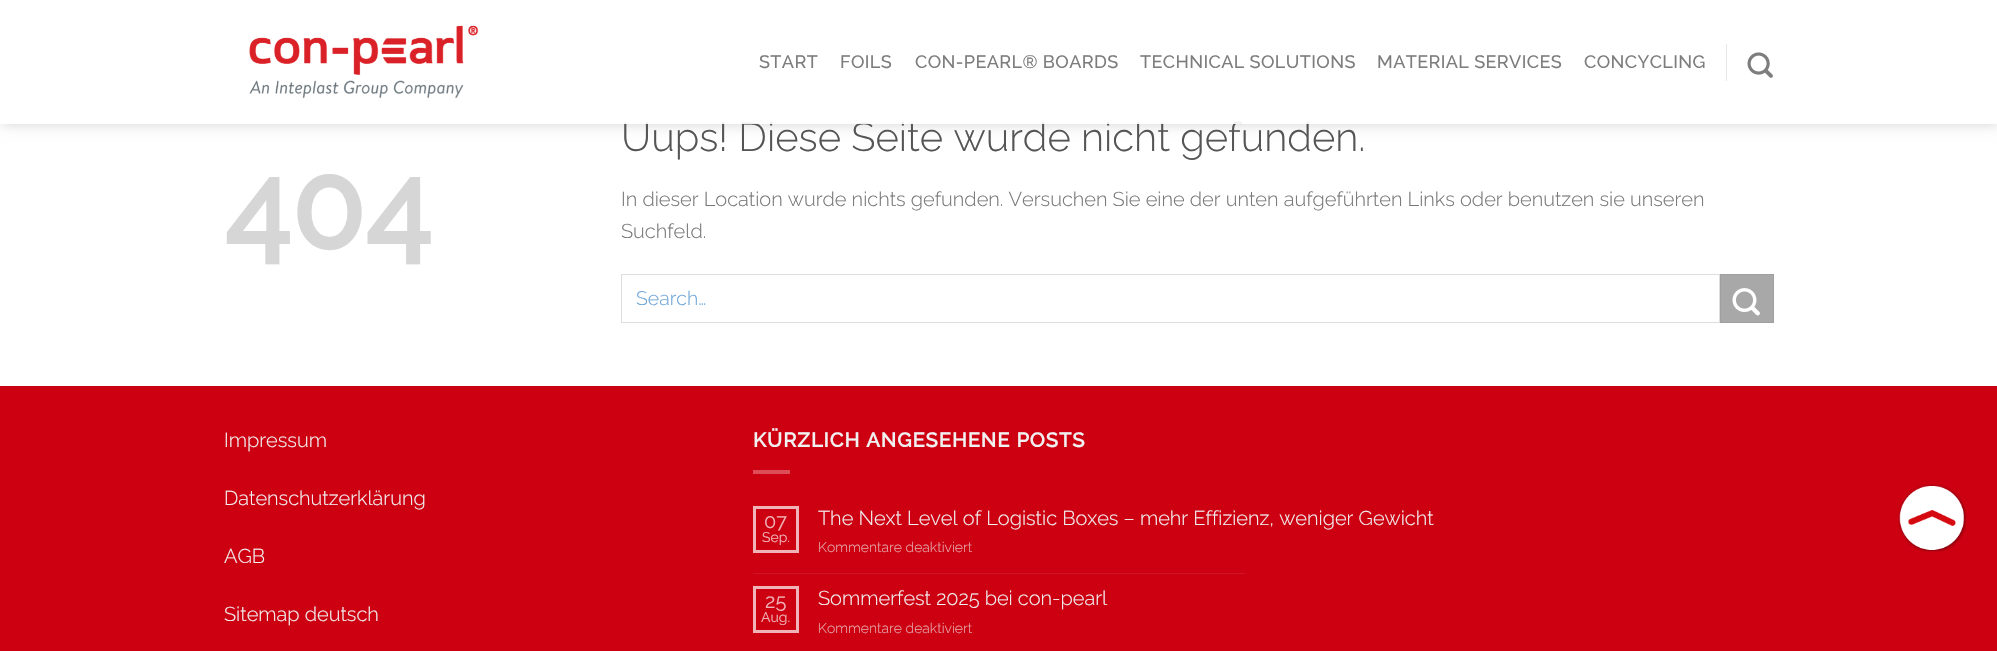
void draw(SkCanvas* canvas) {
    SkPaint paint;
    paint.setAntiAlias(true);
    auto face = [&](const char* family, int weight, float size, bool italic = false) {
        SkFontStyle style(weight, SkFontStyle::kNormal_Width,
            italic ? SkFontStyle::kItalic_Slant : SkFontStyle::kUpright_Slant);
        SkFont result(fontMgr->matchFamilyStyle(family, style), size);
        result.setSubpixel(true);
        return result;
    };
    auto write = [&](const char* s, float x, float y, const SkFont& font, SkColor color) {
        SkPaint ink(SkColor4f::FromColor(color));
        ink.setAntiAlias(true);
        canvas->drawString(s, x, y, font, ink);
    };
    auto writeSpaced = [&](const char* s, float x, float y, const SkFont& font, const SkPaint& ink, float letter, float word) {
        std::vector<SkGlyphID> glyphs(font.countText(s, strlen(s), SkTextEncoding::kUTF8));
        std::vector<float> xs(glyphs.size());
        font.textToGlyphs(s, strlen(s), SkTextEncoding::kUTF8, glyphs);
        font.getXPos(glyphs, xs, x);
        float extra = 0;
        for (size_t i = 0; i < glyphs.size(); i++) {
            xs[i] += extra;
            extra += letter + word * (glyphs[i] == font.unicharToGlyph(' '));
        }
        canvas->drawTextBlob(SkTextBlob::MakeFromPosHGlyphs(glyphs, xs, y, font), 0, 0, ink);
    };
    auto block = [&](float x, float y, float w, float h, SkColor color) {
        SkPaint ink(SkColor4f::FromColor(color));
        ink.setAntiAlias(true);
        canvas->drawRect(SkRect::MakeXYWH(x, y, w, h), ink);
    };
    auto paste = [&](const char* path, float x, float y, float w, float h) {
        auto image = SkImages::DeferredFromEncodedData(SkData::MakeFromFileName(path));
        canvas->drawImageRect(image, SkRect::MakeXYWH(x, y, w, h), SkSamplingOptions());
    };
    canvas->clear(SK_ColorWHITE);
    canvas->save();
    canvas->clipPath(SkPathBuilder(SkPathFillType::kEvenOdd).moveTo(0, 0).lineTo(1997, 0).lineTo(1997, 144).lineTo(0, 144).close().moveTo(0, 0).lineTo(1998, 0).lineTo(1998, 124).lineTo(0, 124).close().detach(), true);
    paint.setColor(SkColorSetARGB(38, 0, 0, 0));
    paint.setMaskFilter(SkMaskFilter::MakeBlur(kNormal_SkBlurStyle, 6));
    canvas->drawRect(SkRect::MakeXYWH(1, 1, 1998, 124), paint);
    paint.setMaskFilter(nullptr);
    canvas->restore();
    paste("pic1.png", 249, 25, 230, 74);
    auto kFont1 = face("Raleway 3", 100, 18);
    paint.setColor(SkColorSetRGB(125, 125, 125));
    writeSpaced("START", 759, 68, kFont1, paint, 0.4f, 0);
    writeSpaced("FOILS", 840, 68, kFont1, paint, 0.4f, 0);
    writeSpaced("CON-PEARL® BOARDS", 915, 68, kFont1, paint, 0.4f, 0);
    writeSpaced("TECHNICAL SOLUTIONS", 1140, 68, kFont1, paint, 0.4f, 0);
    writeSpaced("MATERIAL SERVICES", 1377, 68, kFont1, paint, 0.4f, 0);
    writeSpaced("CONCYCLING", 1584, 68, kFont1, paint, 0.4f, 0);
    block(1726, 44, 1, 37, SkColorSetRGB(230, 230, 230));
    paste("pic2.png", 1747, 52, 26, 26);
    auto kFont2 = face("Raleway", 100, 40);
    write("Uups! Diese Seite wurde nicht gefunden.", 621, 151, kFont2, SkColorSetRGB(85, 85, 85));
    block(1, 121, 1996, 3, SkColorSetARGB(230, 255, 255, 255));
    auto kFont3 = face("Raleway", 700, 120);
    write("404", 224, 249, kFont3, SkColorSetRGB(214, 214, 214));
    auto kFont4 = face("Raleway", 100, 20);
    write("In dieser Location wurde nichts gefunden. Versuchen Sie eine der unten aufgeführten Links oder benutzen sie unseren", 621, 206, kFont4, SkColorSetRGB(119, 119, 119));
    write("Suchfeld.", 621, 238, kFont4, SkColorSetRGB(119, 119, 119));
    paint.setStyle(SkPaint::kStroke_Style);
    paint.setStrokeWidth(1);
    paint.setColor(SkColorSetRGB(221, 221, 221));
    canvas->drawRect(SkRect::MakeXYWH(621.5f, 274.5f, 1098, 48), paint);
    auto kFont5 = face("Raleway", 100, 19.5f);
    write("Search…", 636, 305, kFont5, SkColorSetRGB(111, 166, 215));
    paint.setStyle(SkPaint::kFill_Style);
    paint.setColor(SkColorSetRGB(168, 168, 168));
    canvas->drawRect(SkRect::MakeXYWH(1720.5f, 274.5f, 53, 48), paint);
    paint.setStyle(SkPaint::kStroke_Style);
    paint.setColor(SkColorSetRGB(160, 160, 160));
    canvas->drawRect(SkRect::MakeXYWH(1720.5f, 274.5f, 53, 48), paint);
    paste("pic3.png", 1732, 288, 28, 28);
    block(0, 387, 1997, 264, SkColorSetRGB(205, 0, 17));
    block(0, 386, 1997, 1, SkColorSetRGB(195, 0, 16));
    write("Impressum", 224, 447, kFont4, SkColorSetRGB(241, 241, 241));
    write("Datenschutzerklärung", 224, 505, kFont4, SkColorSetRGB(241, 241, 241));
    write("AGB", 224, 563, kFont4, SkColorSetRGB(241, 241, 241));
    write("Sitemap deutsch", 224, 621, kFont4, SkColorSetRGB(241, 241, 241));
    auto kFont6 = face("Raleway", 700, 20);
    paint.setStyle(SkPaint::kFill_Style);
    paint.setColor(SkColorSetRGB(241, 241, 241));
    writeSpaced("KÜRZLICH ANGESEHENE POSTS", 753, 447, kFont6, paint, 1, 0);
    block(753, 470, 37, 4, SkColorSetRGB(220, 77, 88));
    paint.setStyle(SkPaint::kStroke_Style);
    paint.setStrokeWidth(3);
    paint.setColor(SkColorSetRGB(240, 179, 184));
    canvas->drawRect(SkRect::MakeXYWH(754.5f, 507.5f, 43, 44), paint);
    auto kFont7 = face("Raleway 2", 100, 20);
    write("07", 764, 528, kFont7, SkColorSetRGB(240, 179, 184));
    auto kFont8 = face("Raleway 2", 100, 14);
    write("Sep.", 762, 542, kFont8, SkColorSetRGB(240, 179, 184));
    write("The Next Level of Logistic Boxes – mehr Effizienz, weniger Gewicht", 818, 525, kFont4, SkColorSetRGB(241, 241, 241));
    auto kFont9 = face("Raleway", 100, 14);
    write("Kommentare deaktiviert", 818, 552, kFont9, SkColorSetRGB(230, 169, 174));
    block(753, 573, 492, 1, SkColorSetRGB(209, 20, 36));
    canvas->drawRect(SkRect::MakeXYWH(754.5f, 587.5f, 43, 44), paint);
    write("25", 765, 608, kFont7, SkColorSetRGB(240, 179, 184));
    write("Aug.", 761, 622, kFont8, SkColorSetRGB(240, 179, 184));
    write("Sommerfest 2025 bei con-pearl", 818, 605, kFont4, SkColorSetRGB(241, 241, 241));
    write("Kommentare deaktiviert", 818, 633, kFont9, SkColorSetRGB(230, 169, 174));
    paste("pic4.png", 1898, 484, 69, 68);
}
